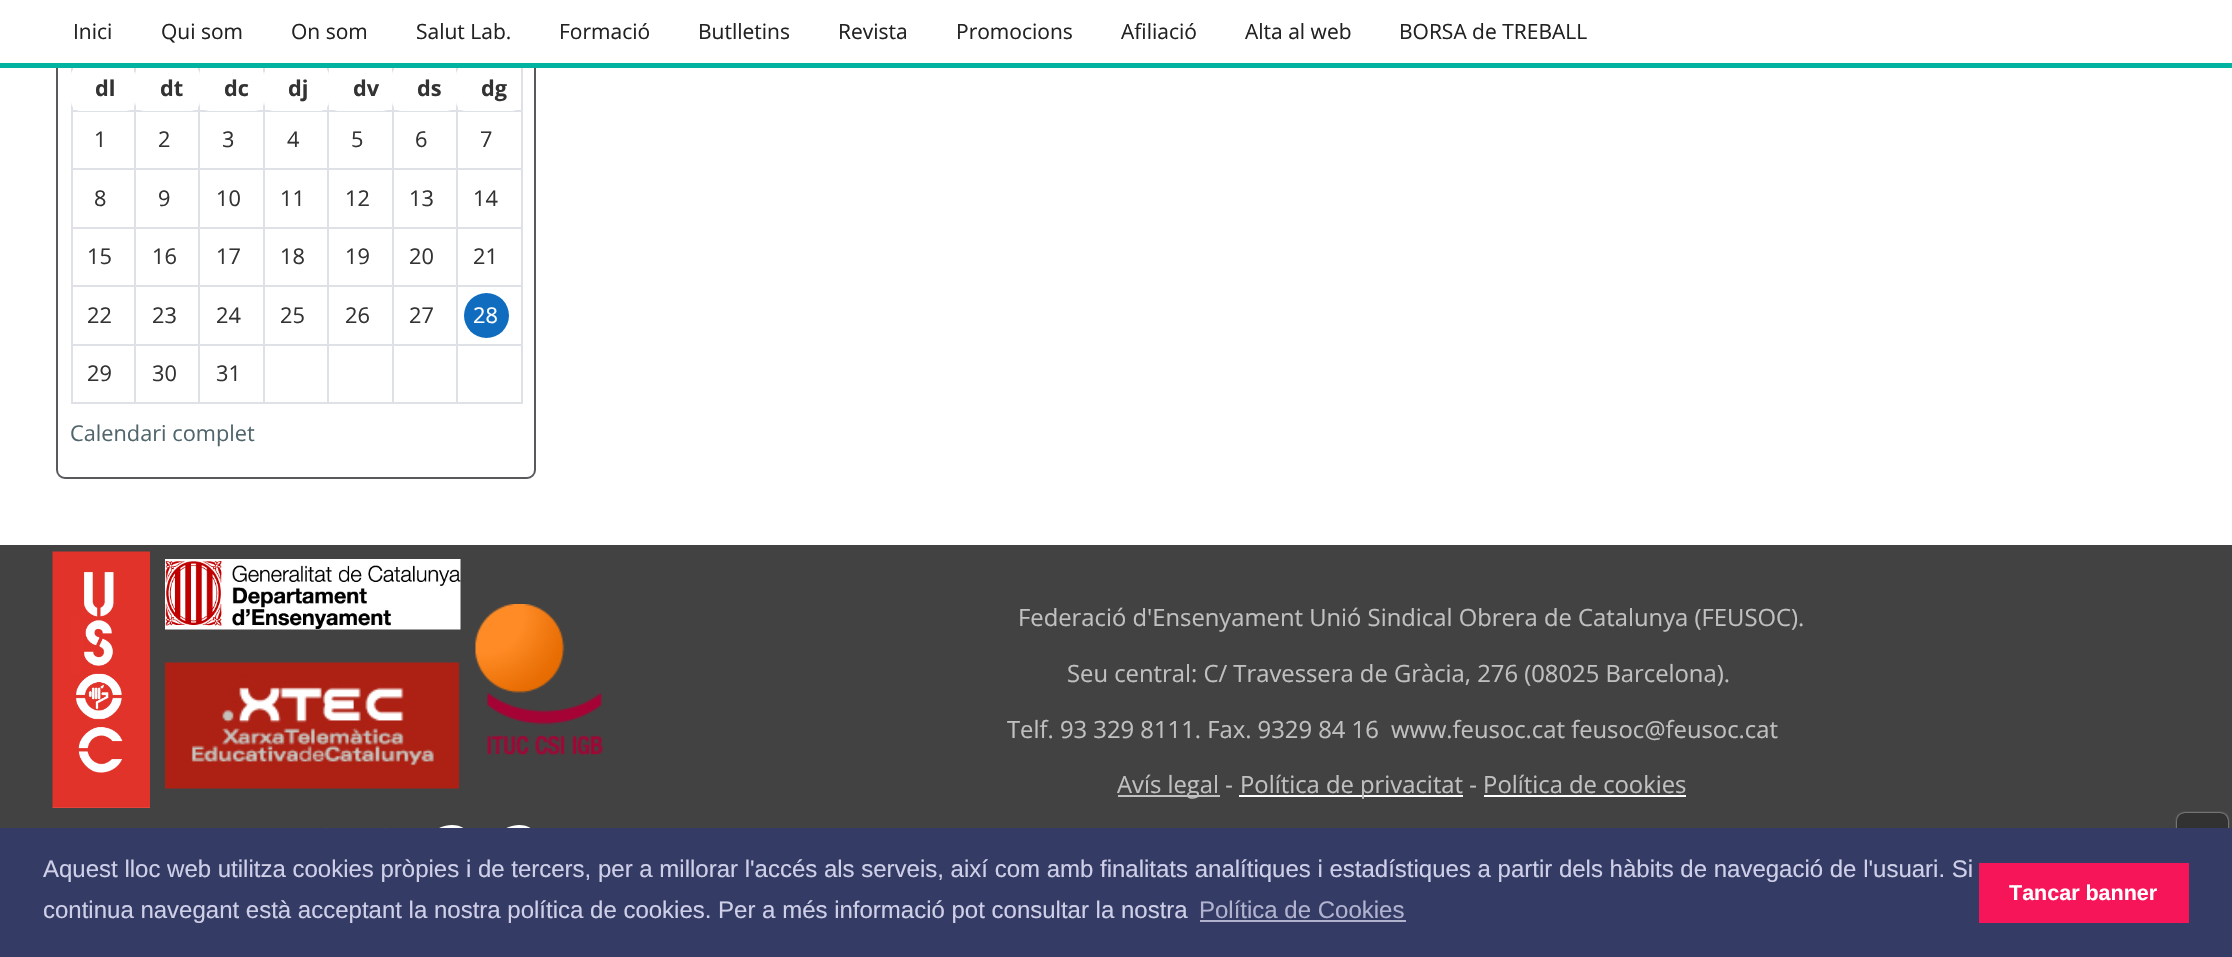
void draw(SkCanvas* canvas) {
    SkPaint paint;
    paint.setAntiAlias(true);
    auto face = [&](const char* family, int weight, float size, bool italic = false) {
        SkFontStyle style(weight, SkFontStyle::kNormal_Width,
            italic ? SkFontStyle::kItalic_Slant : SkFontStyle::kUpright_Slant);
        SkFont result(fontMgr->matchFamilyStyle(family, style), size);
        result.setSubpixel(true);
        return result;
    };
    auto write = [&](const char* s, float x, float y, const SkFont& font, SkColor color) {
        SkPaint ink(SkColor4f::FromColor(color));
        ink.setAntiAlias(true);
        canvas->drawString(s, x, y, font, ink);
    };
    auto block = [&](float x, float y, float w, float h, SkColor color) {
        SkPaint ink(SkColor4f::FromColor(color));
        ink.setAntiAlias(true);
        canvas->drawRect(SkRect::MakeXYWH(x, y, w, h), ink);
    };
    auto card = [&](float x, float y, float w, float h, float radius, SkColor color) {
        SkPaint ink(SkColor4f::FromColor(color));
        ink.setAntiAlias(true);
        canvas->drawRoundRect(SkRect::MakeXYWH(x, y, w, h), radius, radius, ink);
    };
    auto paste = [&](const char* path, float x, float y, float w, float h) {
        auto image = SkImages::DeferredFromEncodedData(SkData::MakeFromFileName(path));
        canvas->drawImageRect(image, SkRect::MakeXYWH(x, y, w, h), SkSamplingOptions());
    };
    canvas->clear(SK_ColorWHITE);
    paint.setStyle(SkPaint::kStroke_Style);
    paint.setStrokeWidth(2);
    paint.setColor(SkColorSetRGB(89, 88, 93));
    canvas->drawRoundRect(SkRect::MakeXYWH(57, -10, 478, 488), 8, 8, paint);
    block(56, 0, 480, 63, SK_ColorWHITE);
    block(456, 110, 66, 2, SkColorSetRGB(222, 226, 230));
    block(456, 168, 66, 2, SkColorSetRGB(222, 226, 230));
    block(456, 227, 66, 2, SkColorSetRGB(222, 226, 230));
    block(456, 285, 66, 2, SkColorSetRGB(222, 226, 230));
    block(456, 344, 66, 2, SkColorSetRGB(222, 226, 230));
    block(521, 344, 2, 60, SkColorSetRGB(222, 226, 230));
    block(456, 402, 66, 2, SkColorSetRGB(222, 226, 230));
    block(456, 344, 2, 60, SkColorSetRGB(222, 226, 230));
    block(392, 344, 66, 2, SkColorSetRGB(222, 226, 230));
    block(456, 285, 2, 60, SkColorSetRGB(222, 226, 230));
    block(392, 285, 66, 2, SkColorSetRGB(222, 226, 230));
    block(456, 227, 2, 60, SkColorSetRGB(222, 226, 230));
    block(392, 227, 66, 2, SkColorSetRGB(222, 226, 230));
    block(456, 168, 2, 60, SkColorSetRGB(222, 226, 230));
    block(392, 168, 66, 2, SkColorSetRGB(222, 226, 230));
    block(456, 110, 2, 60, SkColorSetRGB(222, 226, 230));
    block(392, 110, 66, 2, SkColorSetRGB(222, 226, 230));
    block(392, 402, 66, 2, SkColorSetRGB(222, 226, 230));
    block(392, 344, 2, 60, SkColorSetRGB(222, 226, 230));
    block(327, 344, 66, 2, SkColorSetRGB(222, 226, 230));
    block(392, 285, 2, 60, SkColorSetRGB(222, 226, 230));
    block(327, 285, 66, 2, SkColorSetRGB(222, 226, 230));
    block(392, 227, 2, 60, SkColorSetRGB(222, 226, 230));
    block(327, 227, 66, 2, SkColorSetRGB(222, 226, 230));
    block(392, 168, 2, 60, SkColorSetRGB(222, 226, 230));
    block(327, 168, 66, 2, SkColorSetRGB(222, 226, 230));
    block(392, 110, 2, 60, SkColorSetRGB(222, 226, 230));
    block(327, 110, 66, 2, SkColorSetRGB(222, 226, 230));
    block(327, 402, 66, 2, SkColorSetRGB(222, 226, 230));
    block(327, 344, 2, 60, SkColorSetRGB(222, 226, 230));
    block(263, 344, 66, 2, SkColorSetRGB(222, 226, 230));
    block(327, 285, 2, 60, SkColorSetRGB(222, 226, 230));
    block(263, 285, 66, 2, SkColorSetRGB(222, 226, 230));
    block(327, 227, 2, 60, SkColorSetRGB(222, 226, 230));
    block(263, 227, 66, 2, SkColorSetRGB(222, 226, 230));
    block(327, 168, 2, 60, SkColorSetRGB(222, 226, 230));
    block(263, 168, 66, 2, SkColorSetRGB(222, 226, 230));
    block(327, 110, 2, 60, SkColorSetRGB(222, 226, 230));
    block(263, 110, 66, 2, SkColorSetRGB(222, 226, 230));
    block(263, 402, 66, 2, SkColorSetRGB(222, 226, 230));
    block(263, 344, 2, 60, SkColorSetRGB(222, 226, 230));
    block(198, 344, 66, 2, SkColorSetRGB(222, 226, 230));
    block(263, 285, 2, 60, SkColorSetRGB(222, 226, 230));
    block(198, 285, 66, 2, SkColorSetRGB(222, 226, 230));
    block(263, 227, 2, 60, SkColorSetRGB(222, 226, 230));
    block(198, 227, 66, 2, SkColorSetRGB(222, 226, 230));
    block(263, 168, 2, 60, SkColorSetRGB(222, 226, 230));
    block(198, 168, 66, 2, SkColorSetRGB(222, 226, 230));
    block(263, 110, 2, 60, SkColorSetRGB(222, 226, 230));
    block(198, 110, 66, 2, SkColorSetRGB(222, 226, 230));
    block(198, 402, 66, 2, SkColorSetRGB(222, 226, 230));
    block(198, 344, 2, 60, SkColorSetRGB(222, 226, 230));
    block(134, 344, 66, 2, SkColorSetRGB(222, 226, 230));
    block(198, 285, 2, 60, SkColorSetRGB(222, 226, 230));
    block(134, 285, 66, 2, SkColorSetRGB(222, 226, 230));
    block(198, 227, 2, 60, SkColorSetRGB(222, 226, 230));
    block(134, 227, 66, 2, SkColorSetRGB(222, 226, 230));
    block(198, 168, 2, 60, SkColorSetRGB(222, 226, 230));
    block(134, 168, 66, 2, SkColorSetRGB(222, 226, 230));
    block(198, 110, 2, 60, SkColorSetRGB(222, 226, 230));
    block(134, 110, 66, 2, SkColorSetRGB(222, 226, 230));
    block(134, 402, 66, 2, SkColorSetRGB(222, 226, 230));
    block(134, 344, 2, 60, SkColorSetRGB(222, 226, 230));
    block(71, 344, 64, 2, SkColorSetRGB(222, 226, 230));
    block(134, 285, 2, 60, SkColorSetRGB(222, 226, 230));
    block(71, 285, 64, 2, SkColorSetRGB(222, 226, 230));
    block(134, 227, 2, 60, SkColorSetRGB(222, 226, 230));
    block(71, 227, 64, 2, SkColorSetRGB(222, 226, 230));
    block(134, 168, 2, 60, SkColorSetRGB(222, 226, 230));
    block(71, 168, 64, 2, SkColorSetRGB(222, 226, 230));
    block(134, 110, 2, 60, SkColorSetRGB(222, 226, 230));
    block(71, 110, 64, 2, SkColorSetRGB(222, 226, 230));
    block(134, 65, 2, 46, SkColorSetRGB(222, 226, 230));
    block(71, 402, 64, 2, SkColorSetRGB(222, 226, 230));
    block(71, 344, 2, 60, SkColorSetRGB(222, 226, 230));
    block(71, 285, 2, 60, SkColorSetRGB(222, 226, 230));
    block(71, 227, 2, 60, SkColorSetRGB(222, 226, 230));
    block(71, 168, 2, 60, SkColorSetRGB(222, 226, 230));
    block(71, 65, 2, 105, SkColorSetRGB(222, 226, 230));
    card(71, 66, 64, 45, 9, SK_ColorWHITE);
    block(198, 65, 2, 46, SkColorSetRGB(222, 226, 230));
    card(135, 66, 65, 45, 9, SK_ColorWHITE);
    block(263, 65, 2, 46, SkColorSetRGB(222, 226, 230));
    card(200, 66, 64, 45, 9, SK_ColorWHITE);
    block(327, 65, 2, 46, SkColorSetRGB(222, 226, 230));
    card(264, 66, 65, 45, 9, SK_ColorWHITE);
    card(329, 66, 63, 45, 9, SK_ColorWHITE);
    block(392, 65, 2, 46, SkColorSetRGB(222, 226, 230));
    card(392, 66, 64, 45, 9, SK_ColorWHITE);
    block(456, 65, 2, 46, SkColorSetRGB(222, 226, 230));
    card(456, 66, 65, 45, 9, SK_ColorWHITE);
    block(521, 285, 2, 60, SkColorSetRGB(222, 226, 230));
    block(521, 227, 2, 60, SkColorSetRGB(222, 226, 230));
    block(521, 168, 2, 60, SkColorSetRGB(222, 226, 230));
    block(521, 65, 2, 105, SkColorSetRGB(222, 226, 230));
    block(0, 63, 2232, 5, SkColorSetRGB(0, 179, 161));
    auto kFont1 = face("Open Sans", 400, 21);
    write("Inici", 73, 39, kFont1, SkColorSetRGB(34, 34, 34));
    write("Qui som", 161, 39, kFont1, SkColorSetRGB(34, 34, 34));
    write("On som", 291, 39, kFont1, SkColorSetRGB(34, 34, 34));
    write("Salut Lab.", 416, 39, kFont1, SkColorSetRGB(34, 34, 34));
    write("Formació", 559, 39, kFont1, SkColorSetRGB(34, 34, 34));
    write("Butlletins", 698, 39, kFont1, SkColorSetRGB(34, 34, 34));
    write("Revista", 838, 39, kFont1, SkColorSetRGB(34, 34, 34));
    write("Promocions", 956, 39, kFont1, SkColorSetRGB(34, 34, 34));
    write("Afiliació", 1121, 39, kFont1, SkColorSetRGB(34, 34, 34));
    write("Alta al web", 1245, 39, kFont1, SkColorSetRGB(34, 34, 34));
    write("BORSA de TREBALL", 1399, 39, kFont1, SkColorSetRGB(34, 34, 34));
    auto kFont2 = face("Open Sans", 700, 21.75f);
    write("dl", 95, 96, kFont2, SkColorSetRGB(51, 51, 51));
    write("dt", 160, 96, kFont2, SkColorSetRGB(51, 51, 51));
    write("dc", 224, 96, kFont2, SkColorSetRGB(51, 51, 51));
    write("dj", 288, 96, kFont2, SkColorSetRGB(51, 51, 51));
    write("dv", 353, 96, kFont2, SkColorSetRGB(51, 51, 51));
    write("ds", 417, 96, kFont2, SkColorSetRGB(51, 51, 51));
    write("dg", 481, 96, kFont2, SkColorSetRGB(51, 51, 51));
    auto kFont3 = face("Open Sans", 400, 21.75f);
    write("1", 94, 147, kFont3, SkColorSetRGB(51, 51, 51));
    write("2", 158, 147, kFont3, SkColorSetRGB(51, 51, 51));
    write("3", 222, 147, kFont3, SkColorSetRGB(51, 51, 51));
    write("4", 287, 147, kFont3, SkColorSetRGB(51, 51, 51));
    write("5", 351, 147, kFont3, SkColorSetRGB(51, 51, 51));
    write("6", 415, 147, kFont3, SkColorSetRGB(51, 51, 51));
    write("7", 480, 147, kFont3, SkColorSetRGB(51, 51, 51));
    write("8", 94, 206, kFont3, SkColorSetRGB(51, 51, 51));
    write("9", 158, 206, kFont3, SkColorSetRGB(51, 51, 51));
    write("10", 216, 206, kFont3, SkColorSetRGB(51, 51, 51));
    write("11", 280, 206, kFont3, SkColorSetRGB(51, 51, 51));
    write("12", 345, 206, kFont3, SkColorSetRGB(51, 51, 51));
    write("13", 409, 206, kFont3, SkColorSetRGB(51, 51, 51));
    write("14", 473, 206, kFont3, SkColorSetRGB(51, 51, 51));
    write("15", 87, 264, kFont3, SkColorSetRGB(51, 51, 51));
    write("16", 152, 264, kFont3, SkColorSetRGB(51, 51, 51));
    write("17", 216, 264, kFont3, SkColorSetRGB(51, 51, 51));
    write("18", 280, 264, kFont3, SkColorSetRGB(51, 51, 51));
    write("19", 345, 264, kFont3, SkColorSetRGB(51, 51, 51));
    write("20", 409, 264, kFont3, SkColorSetRGB(51, 51, 51));
    write("21", 473, 264, kFont3, SkColorSetRGB(51, 51, 51));
    write("22", 87, 323, kFont3, SkColorSetRGB(51, 51, 51));
    write("23", 152, 323, kFont3, SkColorSetRGB(51, 51, 51));
    write("24", 216, 323, kFont3, SkColorSetRGB(51, 51, 51));
    write("25", 280, 323, kFont3, SkColorSetRGB(51, 51, 51));
    write("26", 345, 323, kFont3, SkColorSetRGB(51, 51, 51));
    write("27", 409, 323, kFont3, SkColorSetRGB(51, 51, 51));
    paint.setStyle(SkPaint::kFill_Style);
    paint.setColor(SkColorSetRGB(15, 108, 191));
    canvas->drawCircle(486.5f, 315.5f, 22.5f, paint);
    write("28", 473, 323, kFont3, SK_ColorWHITE);
    write("29", 87, 381, kFont3, SkColorSetRGB(51, 51, 51));
    write("30", 152, 381, kFont3, SkColorSetRGB(51, 51, 51));
    write("31", 216, 381, kFont3, SkColorSetRGB(51, 51, 51));
    write("Calendari complet", 70, 441, kFont3, SkColorSetRGB(81, 102, 108));
    block(0, 545, 2232, 283, SkColorSetRGB(66, 66, 66));
    paste("pic1.png", 52, 551, 98, 257);
    paste("pic2.png", 165, 559, 296, 71);
    paste("pic3.png", 475, 604, 128, 152);
    paste("pic4.png", 165, 662, 294, 127);
    auto kFont4 = face("Open Sans", 400, 23.8f);
    write("Federació d'Ensenyament Unió Sindical Obrera de Catalunya (FEUSOC).", 1018, 626, kFont4, SkColorSetRGB(192, 192, 192));
    write("Seu central: C/ Travessera de Gràcia, 276 (08025 Barcelona).", 1067, 682, kFont4, SkColorSetRGB(192, 192, 192));
    write("Telf. 93 329 8111. Fax. 9329 84 16", 1007, 738, kFont4, SkColorSetRGB(192, 192, 192));
    write("www.feusoc.cat feusoc@feusoc.cat", 1391, 738, kFont4, SkColorSetRGB(192, 192, 192));
    block(1118, 795, 102, 2, SkColorSetRGB(192, 192, 192));
    write("Avís legal -", 1117, 793, kFont4, SkColorSetRGB(192, 192, 192));
    block(1239, 795, 224, 2, SK_ColorWHITE);
    write("Política de privacitat - Política de cookies", 1240, 793, kFont4, SkColorSetRGB(192, 192, 192));
    block(1484, 795, 202, 2, SK_ColorWHITE);
    paste("pic5.png", 325, 827, 2, 1);
    paste("pic5.png", 385, 827, 2, 1);
    paint.setColor(SK_ColorWHITE);
    canvas->drawPath(SkPathBuilder().moveTo(459, 861).lineTo(463, 841).cubicTo(463, 838, 458, 841, 457, 841).lineTo(436, 850).cubicTo(435, 851, 442, 852, 443, 853).lineTo(457, 844).cubicTo(458, 844, 459, 843, 458, 844).lineTo(447, 854).lineTo(446, 861).lineTo(450, 857).cubicTo(452, 858, 458, 865, 459, 861).close().moveTo(474, 840).cubicTo(486, 870, 441, 889, 428, 859).cubicTo(415, 829, 461, 810, 474, 840).close().detach(), paint);
    canvas->drawPath(SkPathBuilder().moveTo(526, 861).lineTo(530, 841).cubicTo(531, 838, 525, 841, 525, 841).lineTo(504, 850).cubicTo(503, 851, 510, 852, 511, 853).lineTo(525, 844).cubicTo(525, 844, 526, 843, 526, 844).lineTo(514, 854).lineTo(514, 861).lineTo(518, 857).cubicTo(519, 858, 525, 865, 526, 861).close().moveTo(541, 840).cubicTo(554, 870, 508, 889, 495, 859).cubicTo(483, 829, 528, 810, 541, 840).close().detach(), paint);
    canvas->save();
    canvas->clipPath(SkPathBuilder(SkPathFillType::kEvenOdd).moveTo(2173, 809).lineTo(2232, 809).lineTo(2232, 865).lineTo(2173, 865).close().moveTo(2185, 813).lineTo(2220, 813).cubicTo(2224.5f, 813, 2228, 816.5f, 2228, 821).lineTo(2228, 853).cubicTo(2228, 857.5f, 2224.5f, 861, 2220, 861).lineTo(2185, 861).cubicTo(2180.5f, 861, 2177, 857.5f, 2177, 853).lineTo(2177, 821).cubicTo(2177, 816.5f, 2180.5f, 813, 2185, 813).close().detach(), true);
    paint.setMaskFilter(SkMaskFilter::MakeBlur(kNormal_SkBlurStyle, 1));
    canvas->drawRoundRect(SkRect::MakeXYWH(2177, 813, 51, 48), 8, 8, paint);
    paint.setMaskFilter(nullptr);
    canvas->restore();
    card(2177, 813, 51, 48, 8, SkColorSetARGB(64, 0, 0, 0));
    block(0, 828, 2232, 129, SkColorSetRGB(52, 60, 102));
    auto kFont5 = face("Liberation Sans", 400, 24);
    write("Aquest lloc web utilitza cookies pròpies i de tercers, per a millorar l'accés als serveis, així com amb finalitats analítiques i estadístiques a partir dels hàbits de navegació de l'usuari. Si", 43, 877, kFont5, SkColorSetRGB(207, 207, 232));
    write("continua navegant està acceptant la nostra política de cookies. Per a més informació pot consultar la nostra", 43, 918, kFont5, SkColorSetRGB(207, 207, 232));
    write("Política de Cookies", 1199, 918, kFont5, SkColorSetRGB(176, 178, 206));
    block(1200, 920, 206, 2, SkColorSetRGB(176, 178, 206));
    block(1979, 863, 210, 60, SkColorSetRGB(247, 21, 89));
    auto kFont6 = face("Liberation Sans", 700, 21.5f);
    write("Tancar banner", 2009, 900, kFont6, SK_ColorWHITE);
}
